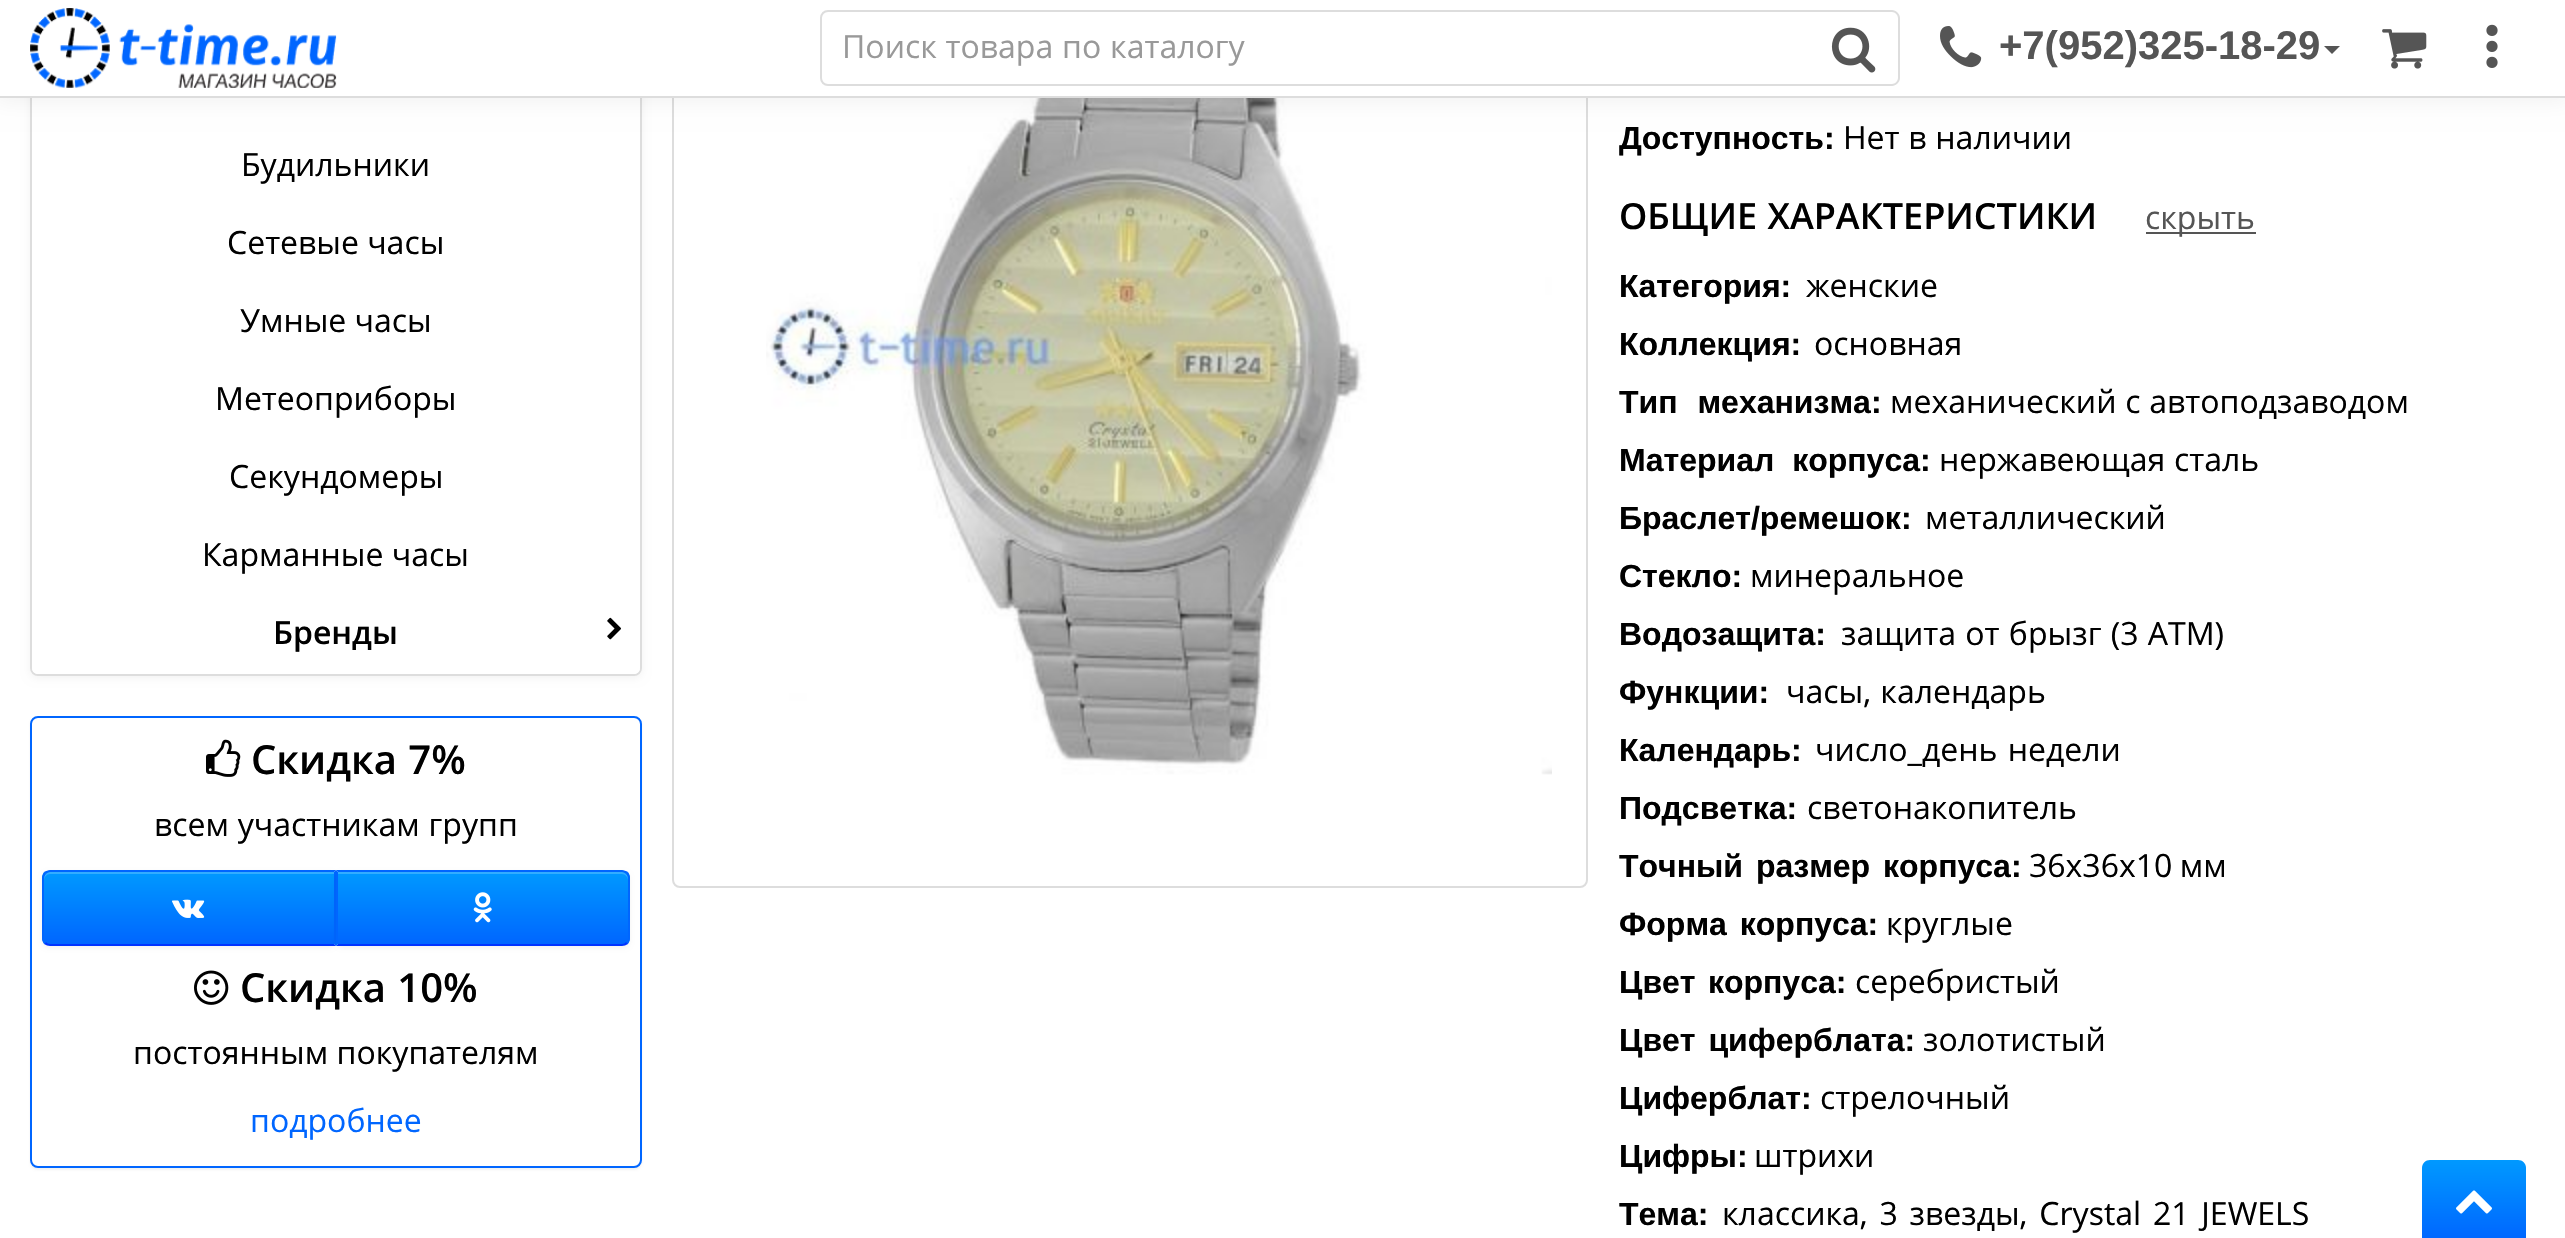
void draw(SkCanvas* canvas) {
    SkPaint paint;
    paint.setAntiAlias(true);
    auto face = [&](const char* family, int weight, float size, bool italic = false) {
        SkFontStyle style(weight, SkFontStyle::kNormal_Width,
            italic ? SkFontStyle::kItalic_Slant : SkFontStyle::kUpright_Slant);
        SkFont result(fontMgr->matchFamilyStyle(family, style), size);
        result.setSubpixel(true);
        return result;
    };
    auto write = [&](const char* s, float x, float y, const SkFont& font, SkColor color) {
        SkPaint ink(SkColor4f::FromColor(color));
        ink.setAntiAlias(true);
        canvas->drawString(s, x, y, font, ink);
    };
    auto writeSpaced = [&](const char* s, float x, float y, const SkFont& font, const SkPaint& ink, float letter, float word) {
        std::vector<SkGlyphID> glyphs(font.countText(s, strlen(s), SkTextEncoding::kUTF8));
        std::vector<float> xs(glyphs.size());
        font.textToGlyphs(s, strlen(s), SkTextEncoding::kUTF8, glyphs);
        font.getXPos(glyphs, xs, x);
        float extra = 0;
        for (size_t i = 0; i < glyphs.size(); i++) {
            xs[i] += extra;
            extra += letter + word * (glyphs[i] == font.unicharToGlyph(' '));
        }
        canvas->drawTextBlob(SkTextBlob::MakeFromPosHGlyphs(glyphs, xs, y, font), 0, 0, ink);
    };
    auto block = [&](float x, float y, float w, float h, SkColor color) {
        SkPaint ink(SkColor4f::FromColor(color));
        ink.setAntiAlias(true);
        canvas->drawRect(SkRect::MakeXYWH(x, y, w, h), ink);
    };
    auto paste = [&](const char* path, float x, float y, float w, float h) {
        auto image = SkImages::DeferredFromEncodedData(SkData::MakeFromFileName(path));
        canvas->drawImageRect(image, SkRect::MakeXYWH(x, y, w, h), SkSamplingOptions());
    };
    canvas->clear(SK_ColorWHITE);
    paint.setColor(SkColorSetARGB(13, 0, 0, 0));
    paint.setMaskFilter(SkMaskFilter::MakeBlur(kNormal_SkBlurStyle, 4));
    canvas->drawRoundRect(SkRect::MakeXYWH(30, -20, 612, 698), 8, 8, paint);
    paint.setMaskFilter(nullptr);
    paint.setColor(SK_ColorWHITE);
    canvas->drawRoundRect(SkRect::MakeXYWH(31, -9, 610, 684), 7, 7, paint);
    paint.setStyle(SkPaint::kStroke_Style);
    paint.setStrokeWidth(2);
    paint.setColor(SkColorSetRGB(221, 221, 221));
    canvas->drawRoundRect(SkRect::MakeXYWH(31, -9, 610, 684), 7, 7, paint);
    canvas->drawRoundRect(SkRect::MakeXYWH(673, -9, 914, 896), 7, 7, paint);
    paste("pic11.png", 766, 98, 786, 677);
    paint.setStyle(SkPaint::kFill_Style);
    paint.setColor(SkColorSetARGB(13, 0, 0, 0));
    paint.setMaskFilter(SkMaskFilter::MakeBlur(kNormal_SkBlurStyle, 10));
    canvas->drawRect(SkRect::MakeXYWH(-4, -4, 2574, 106), paint);
    paint.setMaskFilter(nullptr);
    block(0, 0, 2565, 96, SK_ColorWHITE);
    block(0, 96, 2565, 2, SkColorSetRGB(221, 221, 221));
    paste("pic1.png", 30, 8, 307, 80);
    paint.setStyle(SkPaint::kStroke_Style);
    paint.setColor(SkColorSetRGB(221, 221, 221));
    canvas->drawPath(SkPathBuilder().moveTo(828, 11).lineTo(1811, 11).lineTo(1811, 85).lineTo(828, 85).cubicTo(824, 85, 821, 82, 821, 78).lineTo(821, 18).cubicTo(821, 14, 824, 11, 828, 11).close().detach(), paint);
    auto kFont1 = face("Open Sans", 400, 32);
    paint.setStyle(SkPaint::kFill_Style);
    paint.setColor(SkColorSetRGB(153, 153, 153));
    writeSpaced("Поиск товара по каталогу", 842, 58, kFont1, paint, 0, 0.5f);
    paint.setColor(SK_ColorWHITE);
    canvas->drawPath(SkPathBuilder().moveTo(1810, 10).lineTo(1892, 10).cubicTo(1896.5f, 10, 1900, 13.5f, 1900, 18).lineTo(1900, 78).cubicTo(1900, 82.5f, 1896.5f, 86, 1892, 86).lineTo(1810, 86).close().detach(), paint);
    paint.setColor(SkColorSetRGB(221, 221, 221));
    canvas->drawPath(SkPathBuilder(SkPathFillType::kEvenOdd).moveTo(1810, 10).lineTo(1892, 10).cubicTo(1896, 10, 1900, 14, 1900, 18).lineTo(1900, 78).cubicTo(1900, 82, 1896, 86, 1892, 86).lineTo(1810, 86).close().moveTo(1810, 12).lineTo(1892, 12).cubicTo(1895, 12, 1898, 15, 1898, 18).lineTo(1898, 78).cubicTo(1898, 81, 1895, 84, 1892, 84).lineTo(1810, 84).close().detach(), paint);
    paste("pic2.png", 1831, 27, 45, 46);
    paste("pic3.png", 1940, 26, 42, 42);
    auto kFont2 = face("Liberation Sans", 700, 40);
    write("+7(952)325-18-29", 1999, 59, kFont2, SkColorSetRGB(85, 85, 85));
    paint.setColor(SkColorSetRGB(85, 85, 85));
    canvas->drawPath(SkPathBuilder().moveTo(2324, 46).lineTo(2340, 46).lineTo(2332, 54).close().detach(), paint);
    paste("pic4.png", 2382, 29, 45, 40);
    paste("pic5.png", 2486, 24, 12, 44);
    write("Будильники", 241, 176, kFont1, SK_ColorBLACK);
    write("Сетевые часы", 227, 254, kFont1, SK_ColorBLACK);
    write("Умные часы", 240, 332, kFont1, SK_ColorBLACK);
    write("Метеоприборы", 215, 410, kFont1, SK_ColorBLACK);
    write("Секундомеры", 229, 488, kFont1, SK_ColorBLACK);
    write("Карманные часы", 202, 566, kFont1, SK_ColorBLACK);
    paint.setColor(SK_ColorWHITE);
    canvas->drawPath(SkPathBuilder().moveTo(32, 594).lineTo(640, 594).lineTo(640, 668).cubicTo(640, 671.5f, 637.5f, 674, 634, 674).lineTo(38, 674).cubicTo(34.5f, 674, 32, 671.5f, 32, 668).close().detach(), paint);
    auto kFont3 = face("Open Sans", 600, 32);
    write("Бренды", 273, 644, kFont3, SK_ColorBLACK);
    paste("pic6.png", 607, 617, 14, 23);
    paint.setColor(SkColorSetARGB(13, 0, 0, 0));
    paint.setMaskFilter(SkMaskFilter::MakeBlur(kNormal_SkBlurStyle, 1));
    canvas->drawRoundRect(SkRect::MakeXYWH(30, 718, 612, 452), 8, 8, paint);
    paint.setMaskFilter(nullptr);
    paint.setColor(SK_ColorWHITE);
    canvas->drawRoundRect(SkRect::MakeXYWH(31, 717, 610, 450), 7, 7, paint);
    paint.setStyle(SkPaint::kStroke_Style);
    paint.setColor(SkColorSetRGB(0, 102, 255));
    canvas->drawRoundRect(SkRect::MakeXYWH(31, 717, 610, 450), 7, 7, paint);
    paste("pic7.png", 206, 739, 35, 38);
    auto kFont4 = face("Open Sans", 600, 40);
    paint.setStyle(SkPaint::kFill_Style);
    paint.setColor(SK_ColorBLACK);
    writeSpaced("Скидка 7%", 251, 774, kFont4, paint, 0, 1);
    writeSpaced("всем участникам групп", 154, 836, kFont1, paint, 0, 0.5f);
    paint.setColor(SkColorSetARGB(13, 0, 0, 0));
    paint.setMaskFilter(SkMaskFilter::MakeBlur(kNormal_SkBlurStyle, 2));
    canvas->drawRoundRect(SkRect::MakeXYWH(42, 872, 294, 76), 8, 8, paint);
    paint.setMaskFilter(nullptr);
    canvas->save();
    canvas->clipPath(SkPathBuilder().moveTo(50, 870).lineTo(336, 870).lineTo(336, 946).lineTo(50, 946).cubicTo(45.5f, 946, 42, 942.5f, 42, 938).lineTo(42, 878).cubicTo(42, 873.5f, 45.5f, 870, 50, 870).close().detach(), true);
    {
        const SkColor colors[] = {SkColorSetRGB(0, 153, 255), SkColorSetRGB(0, 102, 255)};
        const float stops[] = {0, 1};
        const SkPoint ends[] = {{189, 872}, {189, 944}};
        paint.setShader(SkGradientShader::MakeLinear(ends, colors, stops, 2, SkTileMode::kClamp));
        paint.setAlpha(255);
    }
    canvas->drawRect(SkRect::MakeXYWH(42, 872, 292, 72), paint);
    canvas->restore();
    paint.setShader(nullptr);
    paint.setColor(SkColorSetARGB(51, 255, 255, 255));
    canvas->drawPath(SkPathBuilder().moveTo(50, 874).lineTo(334, 874).lineTo(334, 872).lineTo(50, 872).cubicTo(45, 872, 44, 876, 44, 880).cubicTo(44, 877, 47, 874, 50, 874).close().detach(), paint);
    paint.setColor(SkColorSetRGB(0, 102, 255));
    canvas->drawPath(SkPathBuilder().moveTo(50, 870).cubicTo(48, 870, 46, 871, 44, 872).lineTo(46, 874).cubicTo(47, 873, 48, 872, 50, 872).lineTo(334, 872).lineTo(336, 870).close().detach(), paint);
    canvas->drawPath(SkPathBuilder().moveTo(336, 870).lineTo(334, 872).lineTo(334, 944).lineTo(336, 946).close().detach(), paint);
    paint.setColor(SkColorSetRGB(0, 51, 255));
    canvas->drawPath(SkPathBuilder().moveTo(336, 946).lineTo(334, 944).lineTo(50, 944).cubicTo(48, 944, 47, 943, 46, 942).lineTo(44, 944).cubicTo(46, 945, 48, 946, 50, 946).close().detach(), paint);
    paint.setColor(SkColorSetRGB(0, 102, 255));
    canvas->drawPath(SkPathBuilder().moveTo(42, 878).lineTo(42, 938).cubicTo(42, 940, 43, 942, 44, 944).lineTo(46, 942).cubicTo(45, 941, 44, 940, 44, 938).lineTo(44, 878).cubicTo(44, 876, 45, 875, 46, 874).lineTo(44, 872).cubicTo(43, 874, 42, 876, 42, 878).close().detach(), paint);
    paste("pic8.png", 172, 899, 33, 19);
    paint.setColor(SkColorSetARGB(13, 0, 0, 0));
    paint.setMaskFilter(SkMaskFilter::MakeBlur(kNormal_SkBlurStyle, 2));
    canvas->drawRoundRect(SkRect::MakeXYWH(336, 872, 294, 76), 8, 8, paint);
    paint.setMaskFilter(nullptr);
    canvas->save();
    canvas->clipPath(SkPathBuilder().moveTo(336, 870).lineTo(622, 870).cubicTo(626.5f, 870, 630, 873.5f, 630, 878).lineTo(630, 938).cubicTo(630, 942.5f, 626.5f, 946, 622, 946).lineTo(336, 946).close().detach(), true);
    {
        const SkColor colors[] = {SkColorSetRGB(0, 153, 255), SkColorSetRGB(0, 102, 255)};
        const float stops[] = {0, 1};
        const SkPoint ends[] = {{483, 872}, {483, 944}};
        paint.setShader(SkGradientShader::MakeLinear(ends, colors, stops, 2, SkTileMode::kClamp));
        paint.setAlpha(255);
    }
    canvas->drawRect(SkRect::MakeXYWH(338, 872, 292, 72), paint);
    canvas->restore();
    paint.setShader(nullptr);
    paint.setColor(SkColorSetARGB(51, 255, 255, 255));
    canvas->drawPath(SkPathBuilder().moveTo(338, 874).lineTo(622, 874).cubicTo(625, 874, 628, 877, 628, 880).cubicTo(628, 876, 627, 872, 622, 872).lineTo(338, 872).close().detach(), paint);
    paint.setColor(SkColorSetRGB(0, 102, 255));
    canvas->drawPath(SkPathBuilder().moveTo(336, 870).lineTo(338, 872).lineTo(622, 872).cubicTo(624, 872, 625, 873, 626, 874).lineTo(628, 872).cubicTo(626, 871, 624, 870, 622, 870).close().detach(), paint);
    canvas->drawPath(SkPathBuilder().moveTo(630, 938).lineTo(630, 878).cubicTo(630, 876, 629, 874, 628, 872).lineTo(626, 874).cubicTo(627, 875, 628, 876, 628, 878).lineTo(628, 938).cubicTo(628, 940, 627, 941, 626, 942).lineTo(628, 944).cubicTo(629, 942, 630, 940, 630, 938).close().detach(), paint);
    paint.setColor(SkColorSetRGB(0, 51, 255));
    canvas->drawPath(SkPathBuilder().moveTo(622, 946).cubicTo(624, 946, 626, 945, 628, 944).lineTo(626, 942).cubicTo(625, 943, 624, 944, 622, 944).lineTo(338, 944).lineTo(336, 946).close().detach(), paint);
    paint.setColor(SkColorSetRGB(0, 102, 255));
    canvas->drawPath(SkPathBuilder().moveTo(336, 870).lineTo(336, 946).lineTo(338, 944).lineTo(338, 872).close().detach(), paint);
    paste("pic9.png", 473, 892, 19, 31);
    paste("pic10.png", 194, 970, 35, 35);
    paint.setColor(SK_ColorBLACK);
    writeSpaced("Скидка 10%", 240, 1002, kFont4, paint, 0, 1);
    write("постоянным покупателям", 133, 1064, kFont1, SK_ColorBLACK);
    write("подробнее", 250, 1132, kFont1, SkColorSetRGB(0, 102, 255));
    auto kFont5 = face("Liberation Sans", 700, 32);
    write("Доступность:", 1619, 149, kFont5, SK_ColorBLACK);
    writeSpaced("Нет в наличии", 1843, 149, kFont1, paint, 0, 0.5f);
    auto kFont6 = face("Open Sans", 600, 36);
    writeSpaced("ОБЩИЕ ХАРАКТЕРИСТИКИ", 1619, 229, kFont6, paint, 0, 1);
    block(2146, 232, 110, 2, SkColorSetRGB(85, 85, 85));
    write("скрыть", 2145, 229, kFont1, SkColorSetRGB(85, 85, 85));
    write("Категория:", 1619, 297, kFont5, SK_ColorBLACK);
    write("женские", 1806, 297, kFont1, SK_ColorBLACK);
    write("Коллекция:", 1619, 355, kFont5, SK_ColorBLACK);
    write("основная", 1814, 355, kFont1, SK_ColorBLACK);
    writeSpaced("Тип механизма:", 1619, 413, kFont5, paint, 0, 11);
    writeSpaced("механический с автоподзаводом", 1890, 413, kFont1, paint, 0, 0.5f);
    writeSpaced("Материал корпуса:", 1619, 471, kFont5, paint, 0, 9);
    writeSpaced("нержавеющая сталь", 1939, 471, kFont1, paint, 0, 0.5f);
    write("Браслет/ремешок:", 1619, 529, kFont5, SK_ColorBLACK);
    write("металлический", 1925, 529, kFont1, SK_ColorBLACK);
    write("Стекло:", 1619, 587, kFont5, SK_ColorBLACK);
    write("минеральное", 1750, 587, kFont1, SK_ColorBLACK);
    write("Водозащита:", 1619, 645, kFont5, SK_ColorBLACK);
    writeSpaced("защита от брызг (3 АТМ)", 1841, 645, kFont1, paint, 0, 1);
    write("Функции:", 1619, 703, kFont5, SK_ColorBLACK);
    writeSpaced("часы, календарь", 1786, 703, kFont1, paint, 0, 1);
    write("Календарь:", 1619, 761, kFont5, SK_ColorBLACK);
    writeSpaced("число_день недели", 1815, 761, kFont1, paint, 0, 2);
    write("Подсветка:", 1619, 819, kFont5, SK_ColorBLACK);
    write("светонакопитель", 1807, 819, kFont1, SK_ColorBLACK);
    writeSpaced("Точный размер корпуса:", 1619, 877, kFont5, paint, 0, 4);
    writeSpaced("36х36х10 мм", 2029, 877, kFont1, paint, 0, -1);
    writeSpaced("Форма корпуса:", 1619, 935, kFont5, paint, 0, 4);
    write("круглые", 1886, 935, kFont1, SK_ColorBLACK);
    writeSpaced("Цвет корпуса:", 1619, 993, kFont5, paint, 0, 3.5f);
    write("серебристый", 1855, 993, kFont1, SK_ColorBLACK);
    writeSpaced("Цвет циферблата:", 1619, 1051, kFont5, paint, 0, 4);
    write("золотистый", 1923, 1051, kFont1, SK_ColorBLACK);
    write("Циферблат:", 1619, 1109, kFont5, SK_ColorBLACK);
    write("стрелочный", 1820, 1109, kFont1, SK_ColorBLACK);
    write("Цифры:", 1619, 1167, kFont5, SK_ColorBLACK);
    write("штрихи", 1754, 1167, kFont1, SK_ColorBLACK);
    write("Тема:", 1619, 1225, kFont5, SK_ColorBLACK);
    writeSpaced("классика, 3 звезды, Crystal 21 JEWELS", 1722, 1225, kFont1, paint, 0, 3.5f);
    {
        const SkColor colors[] = {SkColorSetRGB(0, 153, 255), SkColorSetRGB(0, 102, 255)};
        const float stops[] = {0, 1};
        const SkPoint ends[] = {{2474, 1160}, {2474, 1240}};
        paint.setShader(SkGradientShader::MakeLinear(ends, colors, stops, 2, SkTileMode::kClamp));
        paint.setAlpha(255);
    }
    canvas->drawPath(SkPathBuilder().moveTo(2430, 1160).lineTo(2518, 1160).cubicTo(2522.5f, 1160, 2526, 1163.5f, 2526, 1168).lineTo(2526, 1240).lineTo(2422, 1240).lineTo(2422, 1168).cubicTo(2422, 1163.5f, 2425.5f, 1160, 2430, 1160).close().detach(), paint);
    paste("pic12.png", 2456, 1190, 36, 24);
}
